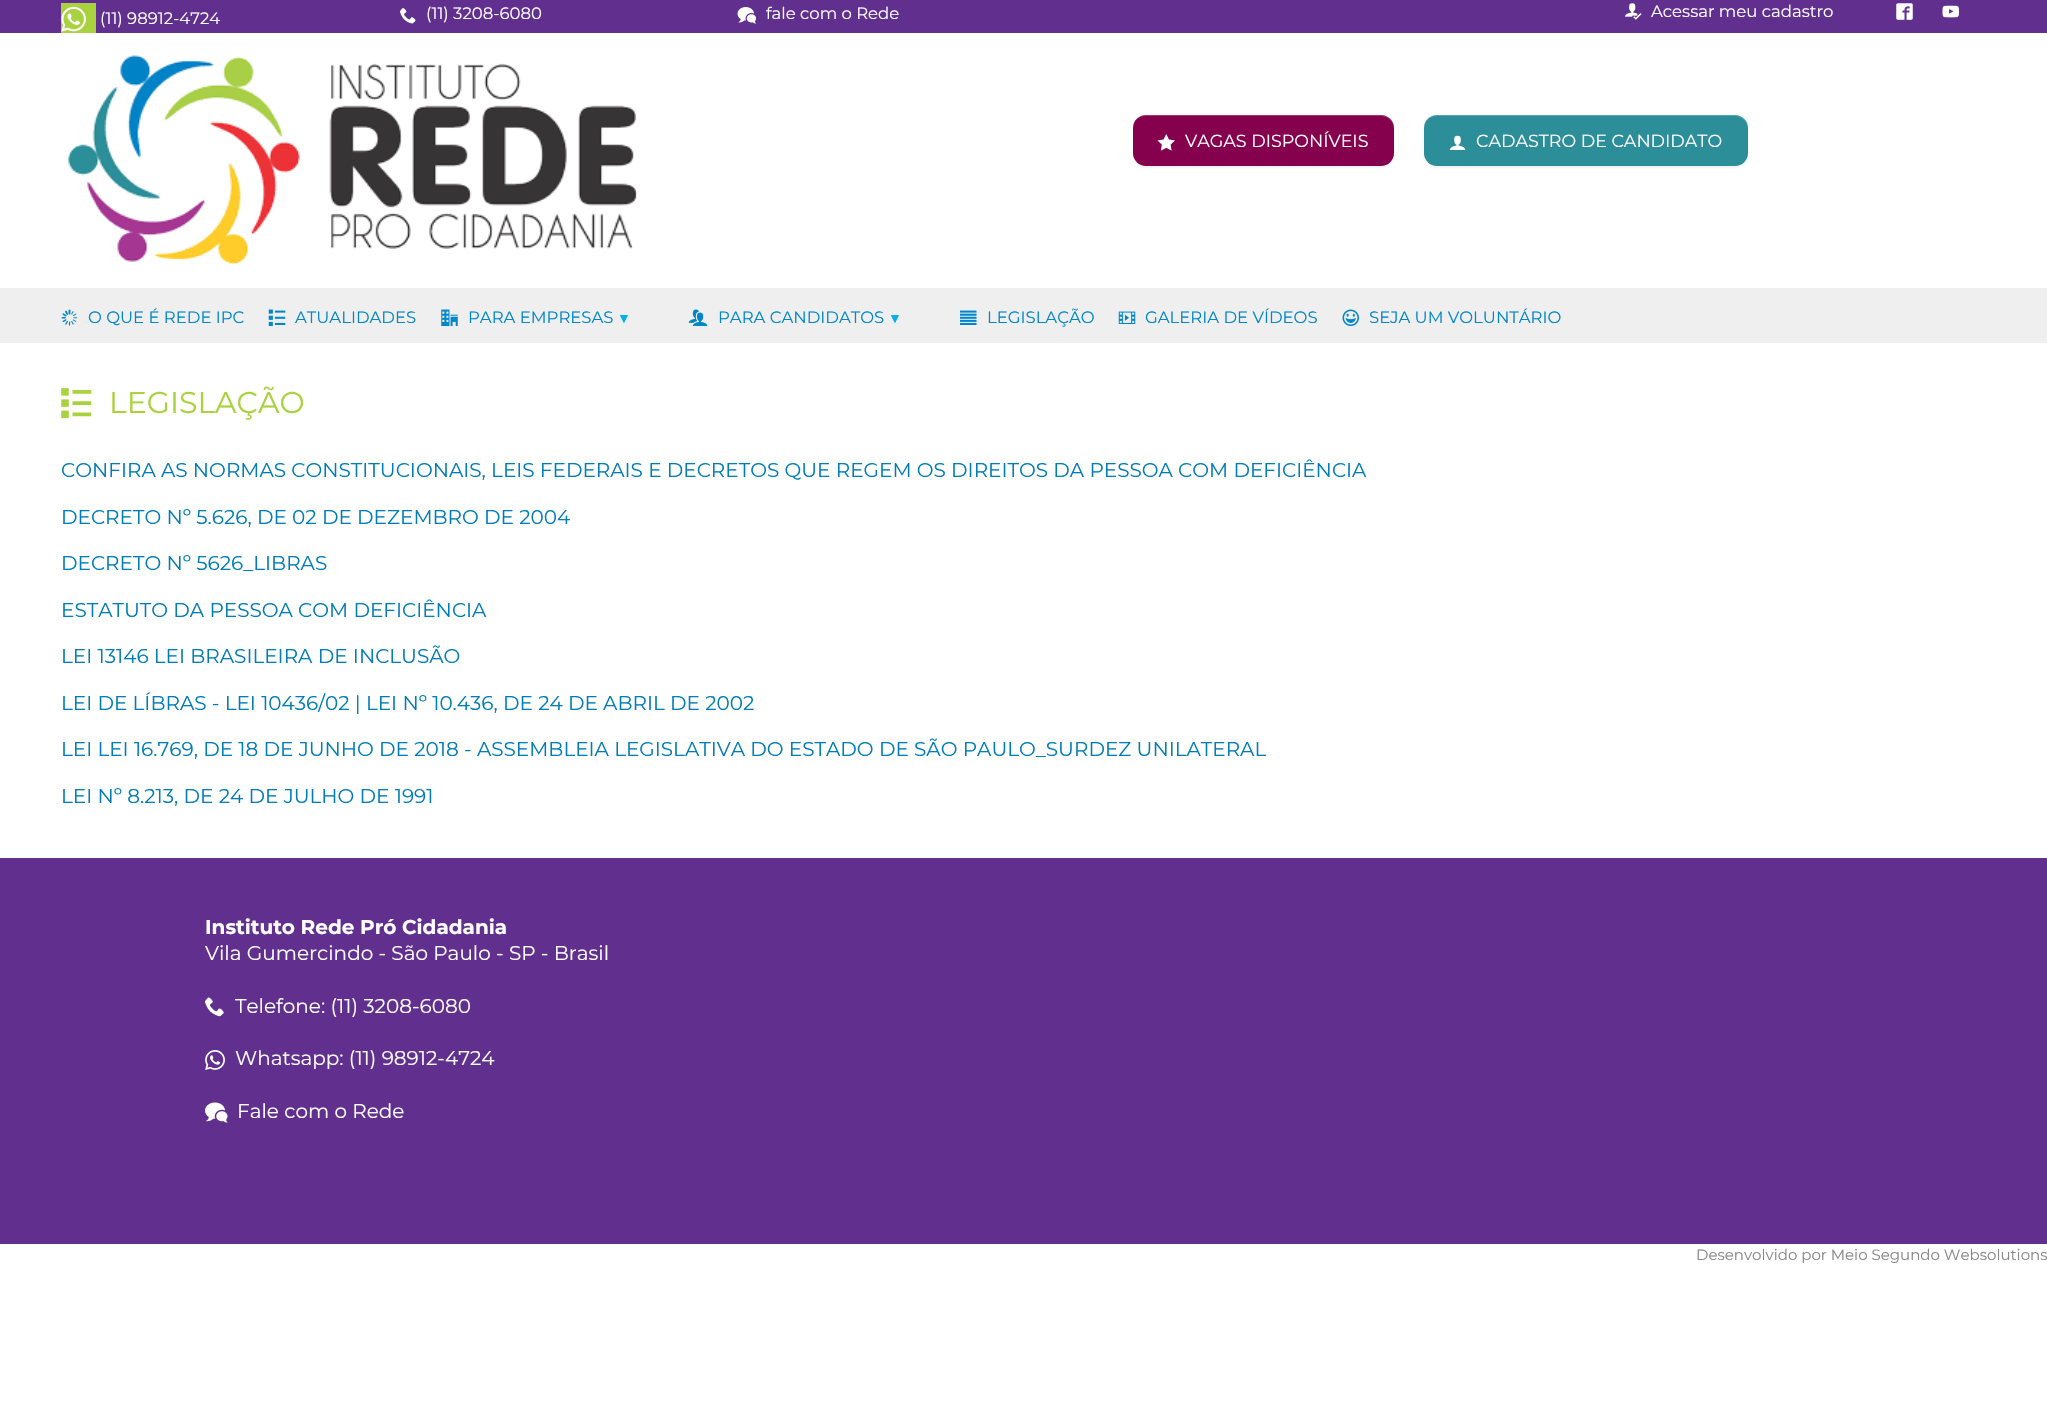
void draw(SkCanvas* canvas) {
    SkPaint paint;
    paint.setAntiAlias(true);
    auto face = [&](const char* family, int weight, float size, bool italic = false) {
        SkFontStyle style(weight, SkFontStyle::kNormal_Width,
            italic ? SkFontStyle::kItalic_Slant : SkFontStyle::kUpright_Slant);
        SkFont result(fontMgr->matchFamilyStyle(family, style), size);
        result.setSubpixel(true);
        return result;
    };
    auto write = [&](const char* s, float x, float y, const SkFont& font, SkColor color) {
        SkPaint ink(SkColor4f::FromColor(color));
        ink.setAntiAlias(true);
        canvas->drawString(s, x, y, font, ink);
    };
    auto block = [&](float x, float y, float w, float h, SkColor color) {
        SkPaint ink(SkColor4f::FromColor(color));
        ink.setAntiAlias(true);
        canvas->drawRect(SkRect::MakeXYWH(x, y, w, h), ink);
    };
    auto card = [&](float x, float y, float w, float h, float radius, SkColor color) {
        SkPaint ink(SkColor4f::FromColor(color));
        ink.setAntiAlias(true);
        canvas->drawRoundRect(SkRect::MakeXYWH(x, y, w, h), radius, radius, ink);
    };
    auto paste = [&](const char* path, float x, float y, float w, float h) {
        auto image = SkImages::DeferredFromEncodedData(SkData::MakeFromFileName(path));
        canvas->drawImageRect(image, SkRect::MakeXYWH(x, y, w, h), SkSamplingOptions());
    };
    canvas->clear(SK_ColorWHITE);
    block(0, 0, 2047, 33, SkColorSetRGB(97, 48, 143));
    block(61, 3, 35, 30, SkColorSetRGB(169, 210, 63));
    paste("pic1.png", 61, 6, 25, 26);
    auto kFont1 = face("Montserrat", 400, 16.5f);
    write("(11) 98912-4724", 100, 24, kFont1, SK_ColorWHITE);
    paste("pic2.png", 400, 8, 16, 16);
    write("(11) 3208-6080", 426, 19, kFont1, SK_ColorWHITE);
    paste("pic3.png", 737, 7, 20, 17);
    write("fale com o Rede", 766, 19, kFont1, SK_ColorWHITE);
    paste("pic4.png", 1625, 3, 17, 17);
    write("Acessar meu cadastro", 1651, 17, kFont1, SK_ColorWHITE);
    paste("pic5.png", 1896, 3, 17, 17);
    paste("pic6.png", 1942, 5, 17, 13);
    paste("pic7.png", 68, 55, 570, 210);
    paint.setColor(SkColorSetARGB(13, 0, 0, 0));
    paint.setMaskFilter(SkMaskFilter::MakeBlur(kNormal_SkBlurStyle, 1));
    canvas->drawRoundRect(SkRect::MakeXYWH(1133, 116, 261, 52), 13, 13, paint);
    paint.setMaskFilter(nullptr);
    card(1133, 115, 261, 51, 13, SkColorSetRGB(133, 1, 77));
    paint.setColor(SkColorSetARGB(51, 255, 255, 255));
    canvas->drawPath(SkPathBuilder().moveTo(1145, 116).lineTo(1381, 116).cubicTo(1388, 116, 1394, 122, 1394, 129).lineTo(1394, 128).cubicTo(1394, 121, 1388, 115, 1381, 115).lineTo(1146, 115).cubicTo(1142, 115, 1138, 117, 1136, 120).cubicTo(1138, 118, 1141, 116, 1145, 116).close().detach(), paint);
    paste("pic8.png", 1157, 134, 18, 17);
    auto kFont2 = face("Montserrat", 400, 17.5f);
    write("VAGAS DISPONÍVEIS", 1185, 147, kFont2, SK_ColorWHITE);
    paint.setColor(SkColorSetARGB(13, 0, 0, 0));
    paint.setMaskFilter(SkMaskFilter::MakeBlur(kNormal_SkBlurStyle, 1));
    canvas->drawRoundRect(SkRect::MakeXYWH(1424, 116, 324, 52), 13, 13, paint);
    paint.setMaskFilter(nullptr);
    card(1424, 115, 324, 51, 13, SkColorSetRGB(43, 142, 153));
    paint.setColor(SkColorSetARGB(51, 255, 255, 255));
    canvas->drawPath(SkPathBuilder().moveTo(1436, 116).lineTo(1735, 116).cubicTo(1742, 116, 1748, 122, 1748, 129).lineTo(1748, 128).cubicTo(1748, 121, 1742, 115, 1735, 115).lineTo(1437, 115).cubicTo(1430, 115, 1424, 121, 1424, 128).lineTo(1424, 129).cubicTo(1424, 122, 1429, 116, 1436, 116).close().detach(), paint);
    paste("pic9.png", 1449, 135, 17, 15);
    write("CADASTRO DE CANDIDATO", 1476, 147, kFont2, SK_ColorWHITE);
    block(0, 288, 2047, 55, SkColorSetRGB(239, 239, 239));
    paste("pic10.png", 61, 309, 17, 17);
    write("O QUE É REDE IPC", 88, 323, kFont1, SkColorSetRGB(0, 134, 201));
    paste("pic11.png", 268, 309, 18, 18);
    write("ATUALIDADES", 295, 323, kFont1, SkColorSetRGB(0, 134, 201));
    paste("pic12.png", 441, 309, 17, 18);
    write("PARA EMPRESAS", 468, 323, kFont1, SkColorSetRGB(0, 134, 201));
    auto kFont3 = face("Liberation Sans", 400, 14);
    write("▼", 617, 323, kFont3, SkColorSetRGB(0, 175, 239));
    paste("pic13.png", 688, 309, 20, 17);
    write("PARA CANDIDATOS", 718, 323, kFont1, SkColorSetRGB(0, 134, 201));
    write("▼", 888, 323, kFont3, SkColorSetRGB(0, 175, 239));
    paste("pic14.png", 960, 310, 17, 15);
    write("LEGISLAÇÃO", 987, 323, kFont1, SkColorSetRGB(0, 134, 201));
    paste("pic15.png", 1118, 311, 18, 13);
    write("GALERIA DE VÍDEOS", 1145, 323, kFont1, SkColorSetRGB(0, 134, 201));
    paste("pic16.png", 1342, 309, 17, 17);
    write("SEJA UM VOLUNTÁRIO", 1369, 323, kFont1, SkColorSetRGB(0, 134, 201));
    paste("pic17.png", 61, 388, 31, 31);
    auto kFont4 = face("Montserrat", 400, 30);
    write("LEGISLAÇÃO", 109, 413, kFont4, SkColorSetRGB(169, 210, 63));
    auto kFont5 = face("Montserrat", 400, 20);
    write("CONFIRA AS NORMAS CONSTITUCIONAIS, LEIS FEDERAIS E DECRETOS QUE REGEM OS DIREITOS DA PESSOA COM DEFICIÊNCIA", 61, 477, kFont5, SkColorSetRGB(0, 124, 182));
    write("DECRETO Nº 5.626, DE 02 DE DEZEMBRO DE 2004", 61, 524, kFont5, SkColorSetRGB(0, 124, 182));
    write("DECRETO Nº 5626_LIBRAS", 61, 570, kFont5, SkColorSetRGB(0, 124, 182));
    write("ESTATUTO DA PESSOA COM DEFICIÊNCIA", 61, 617, kFont5, SkColorSetRGB(0, 124, 182));
    write("LEI 13146 LEI BRASILEIRA DE INCLUSÃO", 61, 663, kFont5, SkColorSetRGB(0, 124, 182));
    write("LEI DE LÍBRAS - LEI 10436/02 | LEI Nº 10.436, DE 24 DE ABRIL DE 2002", 61, 710, kFont5, SkColorSetRGB(0, 124, 182));
    write("LEI LEI 16.769, DE 18 DE JUNHO DE 2018 - ASSEMBLEIA LEGISLATIVA DO ESTADO DE SÃO PAULO_SURDEZ UNILATERAL", 61, 756, kFont5, SkColorSetRGB(0, 124, 182));
    write("LEI Nº 8.213, DE 24 DE JULHO DE 1991", 61, 803, kFont5, SkColorSetRGB(0, 124, 182));
    block(0, 858, 2047, 386, SkColorSetRGB(97, 48, 143));
    auto kFont6 = face("Montserrat", 700, 20);
    write("Instituto Rede Pró Cidadania", 205, 934, kFont6, SK_ColorWHITE);
    write("Vila Gumercindo - São Paulo - SP - Brasil", 205, 960, kFont5, SK_ColorWHITE);
    paste("pic18.png", 205, 997, 19, 20);
    write("Telefone: (11) 3208-6080", 235, 1013, kFont5, SK_ColorWHITE);
    paste("pic19.png", 205, 1050, 20, 20);
    write("Whatsapp: (11) 98912-4724", 235, 1065, kFont5, SK_ColorWHITE);
    paste("pic20.png", 205, 1102, 23, 21);
    write("Fale com o Rede", 237, 1118, kFont5, SK_ColorWHITE);
    auto kFont7 = face("Montserrat", 400, 15);
    write("Desenvolvido por Meio Segundo Websolutions", 1696, 1260, kFont7, SkColorSetRGB(136, 136, 136));
}
